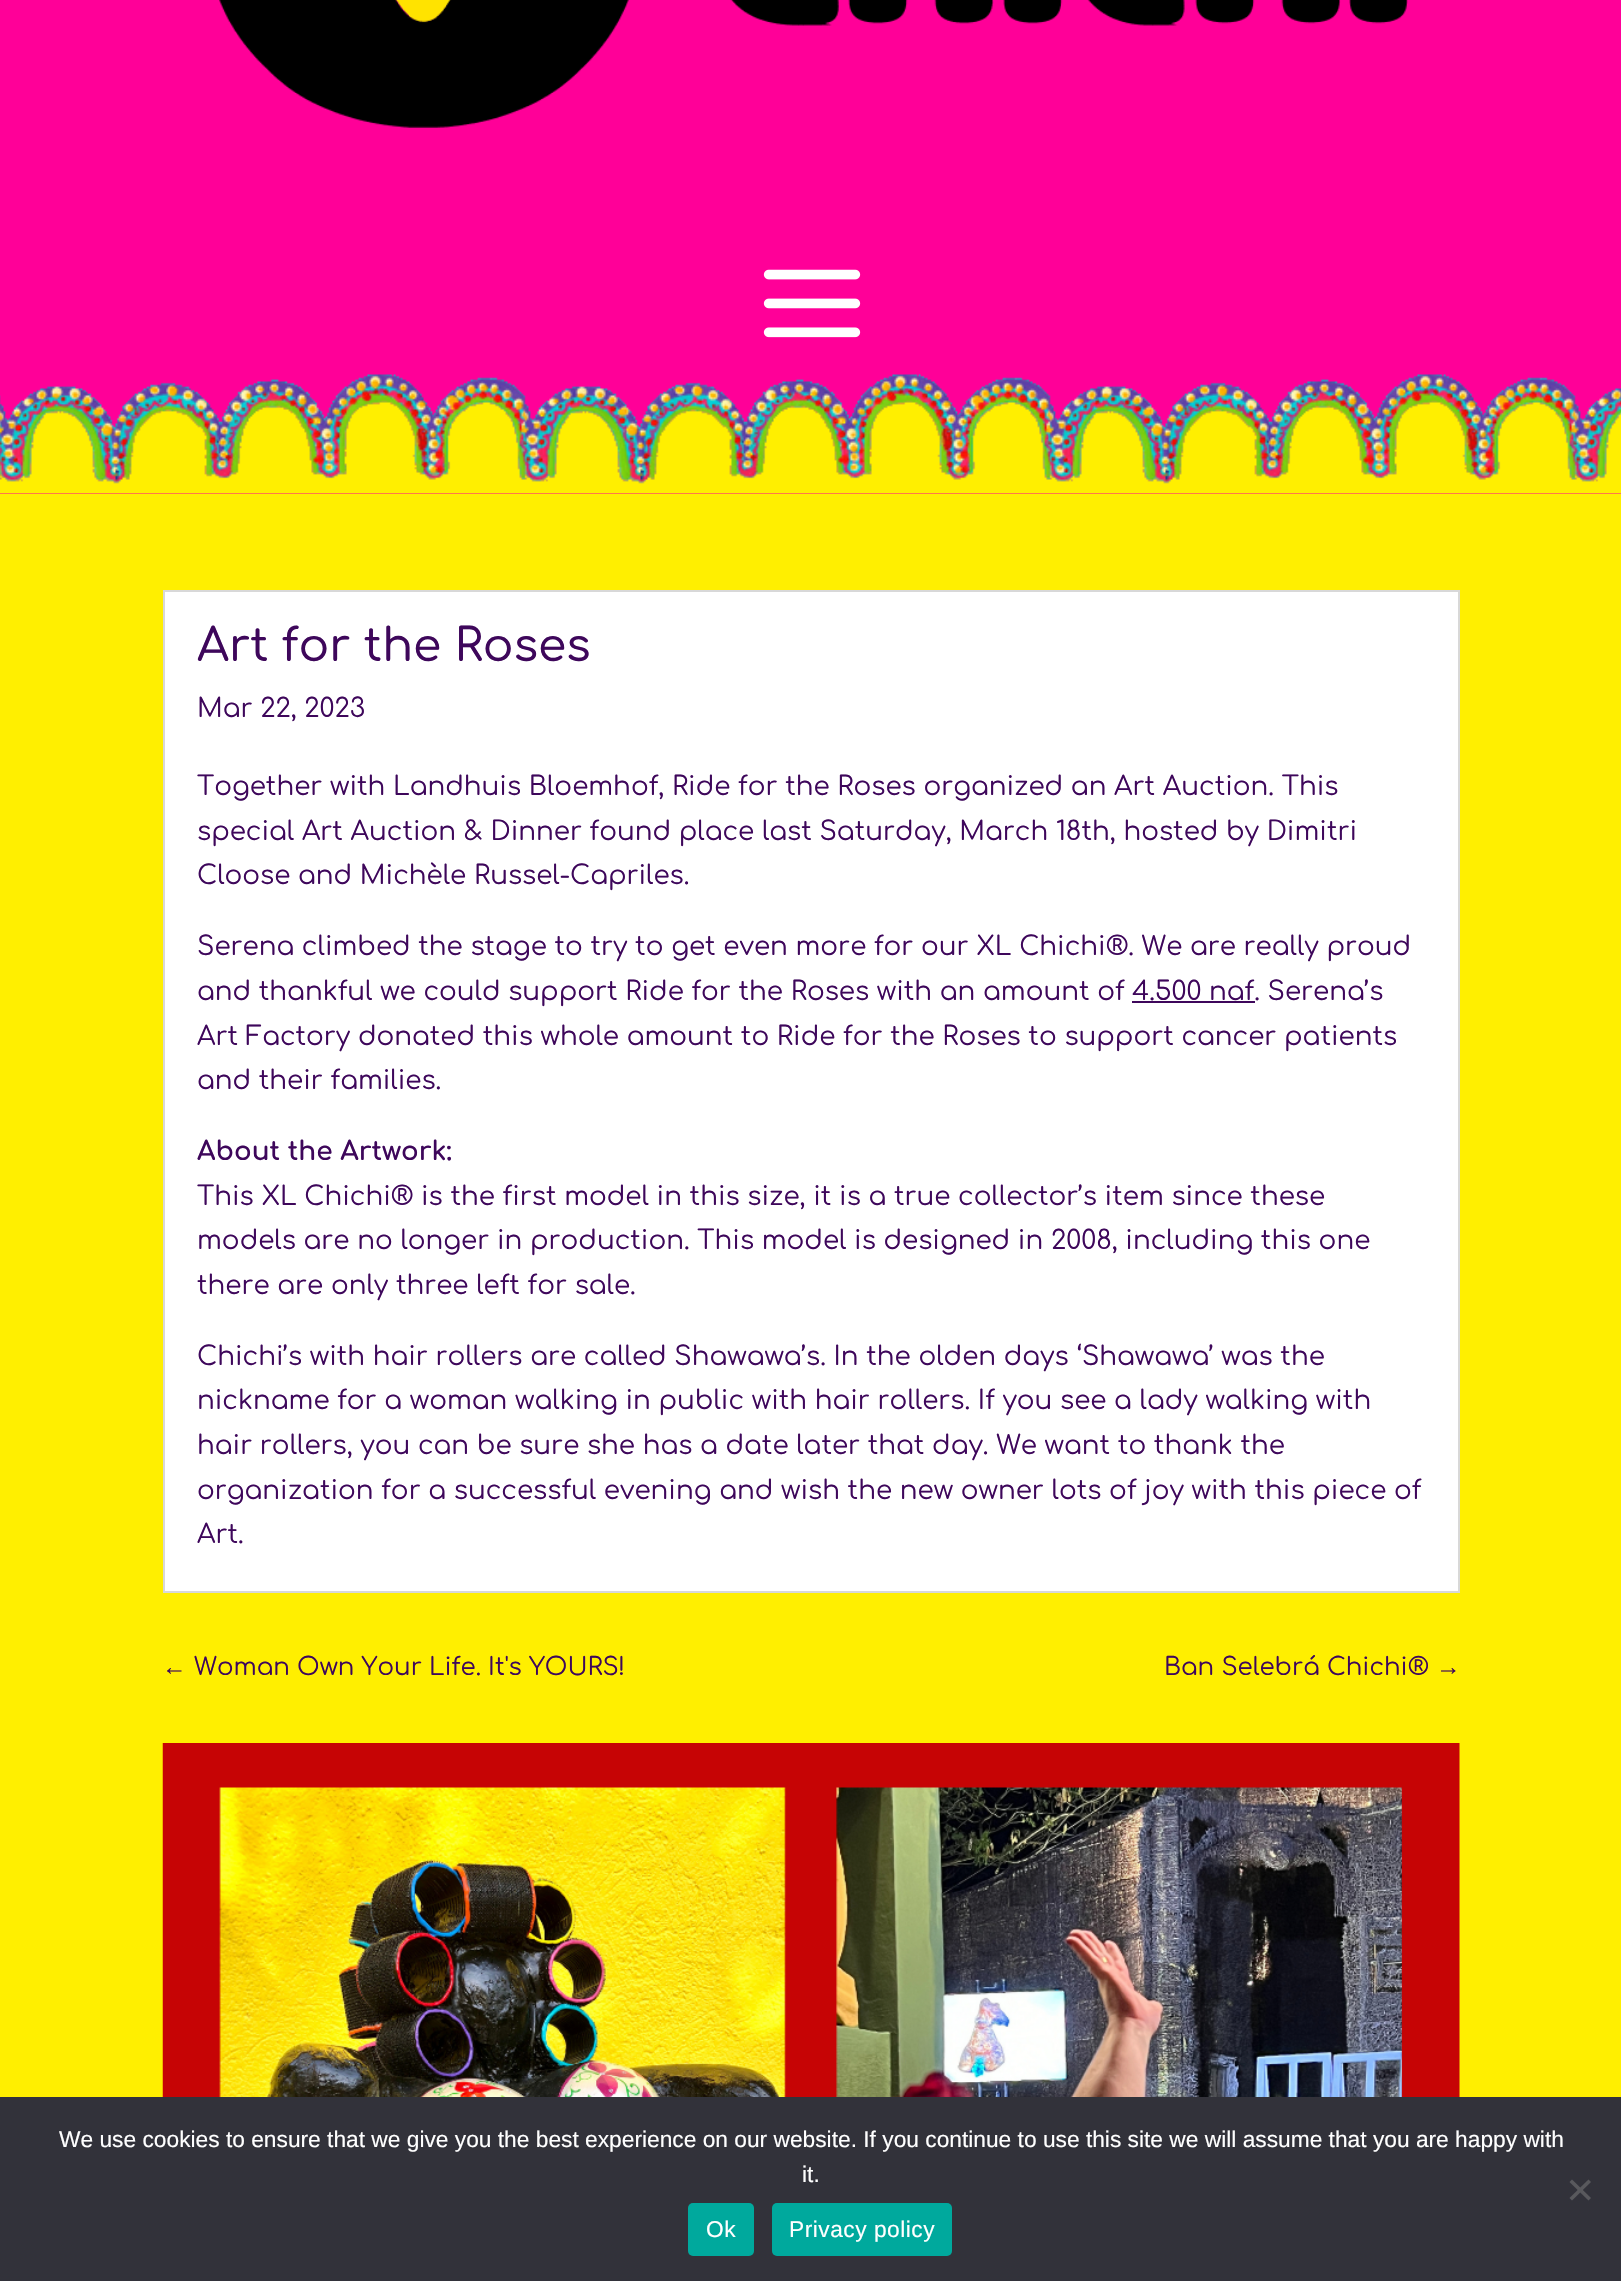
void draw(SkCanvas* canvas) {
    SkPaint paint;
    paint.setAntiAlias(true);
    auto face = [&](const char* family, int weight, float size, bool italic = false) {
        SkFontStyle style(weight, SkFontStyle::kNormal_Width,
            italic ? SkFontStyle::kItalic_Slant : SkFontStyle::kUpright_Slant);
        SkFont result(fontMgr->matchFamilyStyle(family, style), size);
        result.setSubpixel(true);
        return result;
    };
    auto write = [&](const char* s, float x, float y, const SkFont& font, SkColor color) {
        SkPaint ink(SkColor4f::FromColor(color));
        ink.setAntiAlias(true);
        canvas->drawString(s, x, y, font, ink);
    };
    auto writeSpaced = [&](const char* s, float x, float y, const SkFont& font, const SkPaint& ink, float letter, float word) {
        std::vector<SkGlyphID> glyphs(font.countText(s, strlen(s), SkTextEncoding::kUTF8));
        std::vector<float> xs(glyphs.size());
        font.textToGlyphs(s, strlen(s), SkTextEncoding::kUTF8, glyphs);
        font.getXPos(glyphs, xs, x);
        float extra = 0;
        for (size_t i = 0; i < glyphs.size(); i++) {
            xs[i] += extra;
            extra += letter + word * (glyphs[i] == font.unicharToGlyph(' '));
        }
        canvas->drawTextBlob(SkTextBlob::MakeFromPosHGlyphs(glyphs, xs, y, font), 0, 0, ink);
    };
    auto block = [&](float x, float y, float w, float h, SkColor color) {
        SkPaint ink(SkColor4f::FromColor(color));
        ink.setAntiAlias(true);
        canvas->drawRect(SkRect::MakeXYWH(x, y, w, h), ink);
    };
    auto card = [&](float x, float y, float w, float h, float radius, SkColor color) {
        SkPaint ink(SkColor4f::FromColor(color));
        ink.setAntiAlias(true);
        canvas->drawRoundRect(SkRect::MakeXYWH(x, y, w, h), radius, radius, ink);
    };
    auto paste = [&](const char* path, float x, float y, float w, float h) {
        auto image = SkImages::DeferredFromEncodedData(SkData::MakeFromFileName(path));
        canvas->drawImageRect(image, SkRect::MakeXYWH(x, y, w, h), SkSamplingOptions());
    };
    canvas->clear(SkColorSetRGB(255, 239, 0));
    block(0, 0, 1621, 494, SkColorSetRGB(255, 0, 152));
    paste("pic1.png", 0, 374, 1621, 120);
    paste("pic2.png", 219, 0, 1189, 128);
    paste("pic3.png", 763, 269, 98, 69);
    block(165, 592, 1293, 999, SK_ColorWHITE);
    block(163, 590, 1297, 2, SkColorSetRGB(216, 216, 216));
    block(1458, 590, 2, 1003, SkColorSetRGB(216, 216, 216));
    block(163, 590, 2, 142, SkColorSetRGB(216, 216, 216));
    auto kFont1 = face("Comfortaa", 500, 45.5f);
    write("Art for the Roses", 197, 661, kFont1, SkColorSetRGB(62, 7, 91));
    auto kFont2 = face("Comfortaa", 400, 26.25f);
    write("Mar 22, 2023", 197, 717, kFont2, SkColorSetRGB(62, 7, 91));
    block(163, 1591, 1297, 2, SkColorSetRGB(216, 216, 216));
    block(163, 732, 2, 861, SkColorSetRGB(216, 216, 216));
    write("Together with Landhuis Bloemhof, Ride for the Roses organized an Art Auction. This", 197, 795, kFont2, SkColorSetRGB(62, 7, 91));
    write("special Art Auction & Dinner found place last Saturday, March 18th, hosted by Dimitri", 197, 840, kFont2, SkColorSetRGB(62, 7, 91));
    write("Cloose and Michèle Russel-Capriles.", 197, 884, kFont2, SkColorSetRGB(62, 7, 91));
    write("Serena climbed the stage to try to get even more for our XL Chichi®. We are really proud", 197, 955, kFont2, SkColorSetRGB(62, 7, 91));
    write("and thankful we could support Ride for the Roses with an amount of 4.500 naf. Serena’s", 197, 1000, kFont2, SkColorSetRGB(62, 7, 91));
    block(1132, 1001, 123, 2, SkColorSetRGB(62, 7, 91));
    write("Art Factory donated this whole amount to Ride for the Roses to support cancer patients", 197, 1045, kFont2, SkColorSetRGB(62, 7, 91));
    write("and their families.", 197, 1089, kFont2, SkColorSetRGB(62, 7, 91));
    auto kFont3 = face("Comfortaa", 700, 26.25f);
    write("About the Artwork:", 197, 1160, kFont3, SkColorSetRGB(62, 7, 91));
    write("This XL Chichi® is the first model in this size, it is a true collector’s item since these", 197, 1205, kFont2, SkColorSetRGB(62, 7, 91));
    write("models are no longer in production. This model is designed in 2008, including this one", 197, 1249, kFont2, SkColorSetRGB(62, 7, 91));
    write("there are only three left for sale.", 197, 1294, kFont2, SkColorSetRGB(62, 7, 91));
    write("Chichi’s with hair rollers are called Shawawa’s. In the olden days ‘Shawawa’ was the", 197, 1365, kFont2, SkColorSetRGB(62, 7, 91));
    write("nickname for a woman walking in public with hair rollers. If you see a lady walking with", 197, 1409, kFont2, SkColorSetRGB(62, 7, 91));
    write("hair rollers, you can be sure she has a date later that day. We want to thank the", 197, 1454, kFont2, SkColorSetRGB(62, 7, 91));
    write("organization for a successful evening and wish the new owner lots of joy with this piece of", 197, 1499, kFont2, SkColorSetRGB(62, 7, 91));
    write("Art.", 197, 1543, kFont2, SkColorSetRGB(62, 7, 91));
    auto kFont4 = face("Liberation Sans", 400, 24.5f);
    write("←", 162, 1675, kFont4, SkColorSetRGB(62, 7, 91));
    auto kFont5 = face("Comfortaa", 400, 24.5f);
    write("Woman Own Your Life. It's YOURS!", 194, 1675, kFont5, SkColorSetRGB(62, 7, 91));
    write("Ban Selebrá Chichi®", 1164, 1675, kFont5, SkColorSetRGB(62, 7, 91));
    write("→", 1436, 1675, kFont4, SkColorSetRGB(62, 7, 91));
    paste("pic4.png", 162, 1743, 1298, 354);
    block(0, 2097, 1621, 184, SkColorSetRGB(50, 50, 58));
    auto kFont6 = face("Liberation Sans", 400, 22.75f);
    write("We use cookies to ensure that we give you the best experience on our website. If you continue to use this site we will assume that you are happy with", 59, 2147, kFont6, SK_ColorWHITE);
    write("it.", 802, 2182, kFont6, SK_ColorWHITE);
    paint.setColor(SkColorSetRGB(89, 89, 93));
    canvas->drawPath(SkPathBuilder().moveTo(1588.5f, 2179.5f).lineTo(1591, 2182).lineTo(1572, 2200.5f).lineTo(1569.5f, 2198).close().detach(), paint);
    canvas->drawPath(SkPathBuilder().moveTo(1569.5f, 2182).lineTo(1572, 2179.5f).lineTo(1591, 2198).lineTo(1588.5f, 2200.5f).close().detach(), paint);
    card(688, 2203, 66, 53, 5, SkColorSetRGB(0, 169, 157));
    paint.setColor(SK_ColorWHITE);
    writeSpaced("Ok", 706, 2237, kFont6, paint, 0.5f, 0);
    card(772, 2203, 180, 53, 5, SkColorSetRGB(0, 169, 157));
    writeSpaced("Privacy policy", 789, 2237, kFont6, paint, 0.5f, 0);
}
